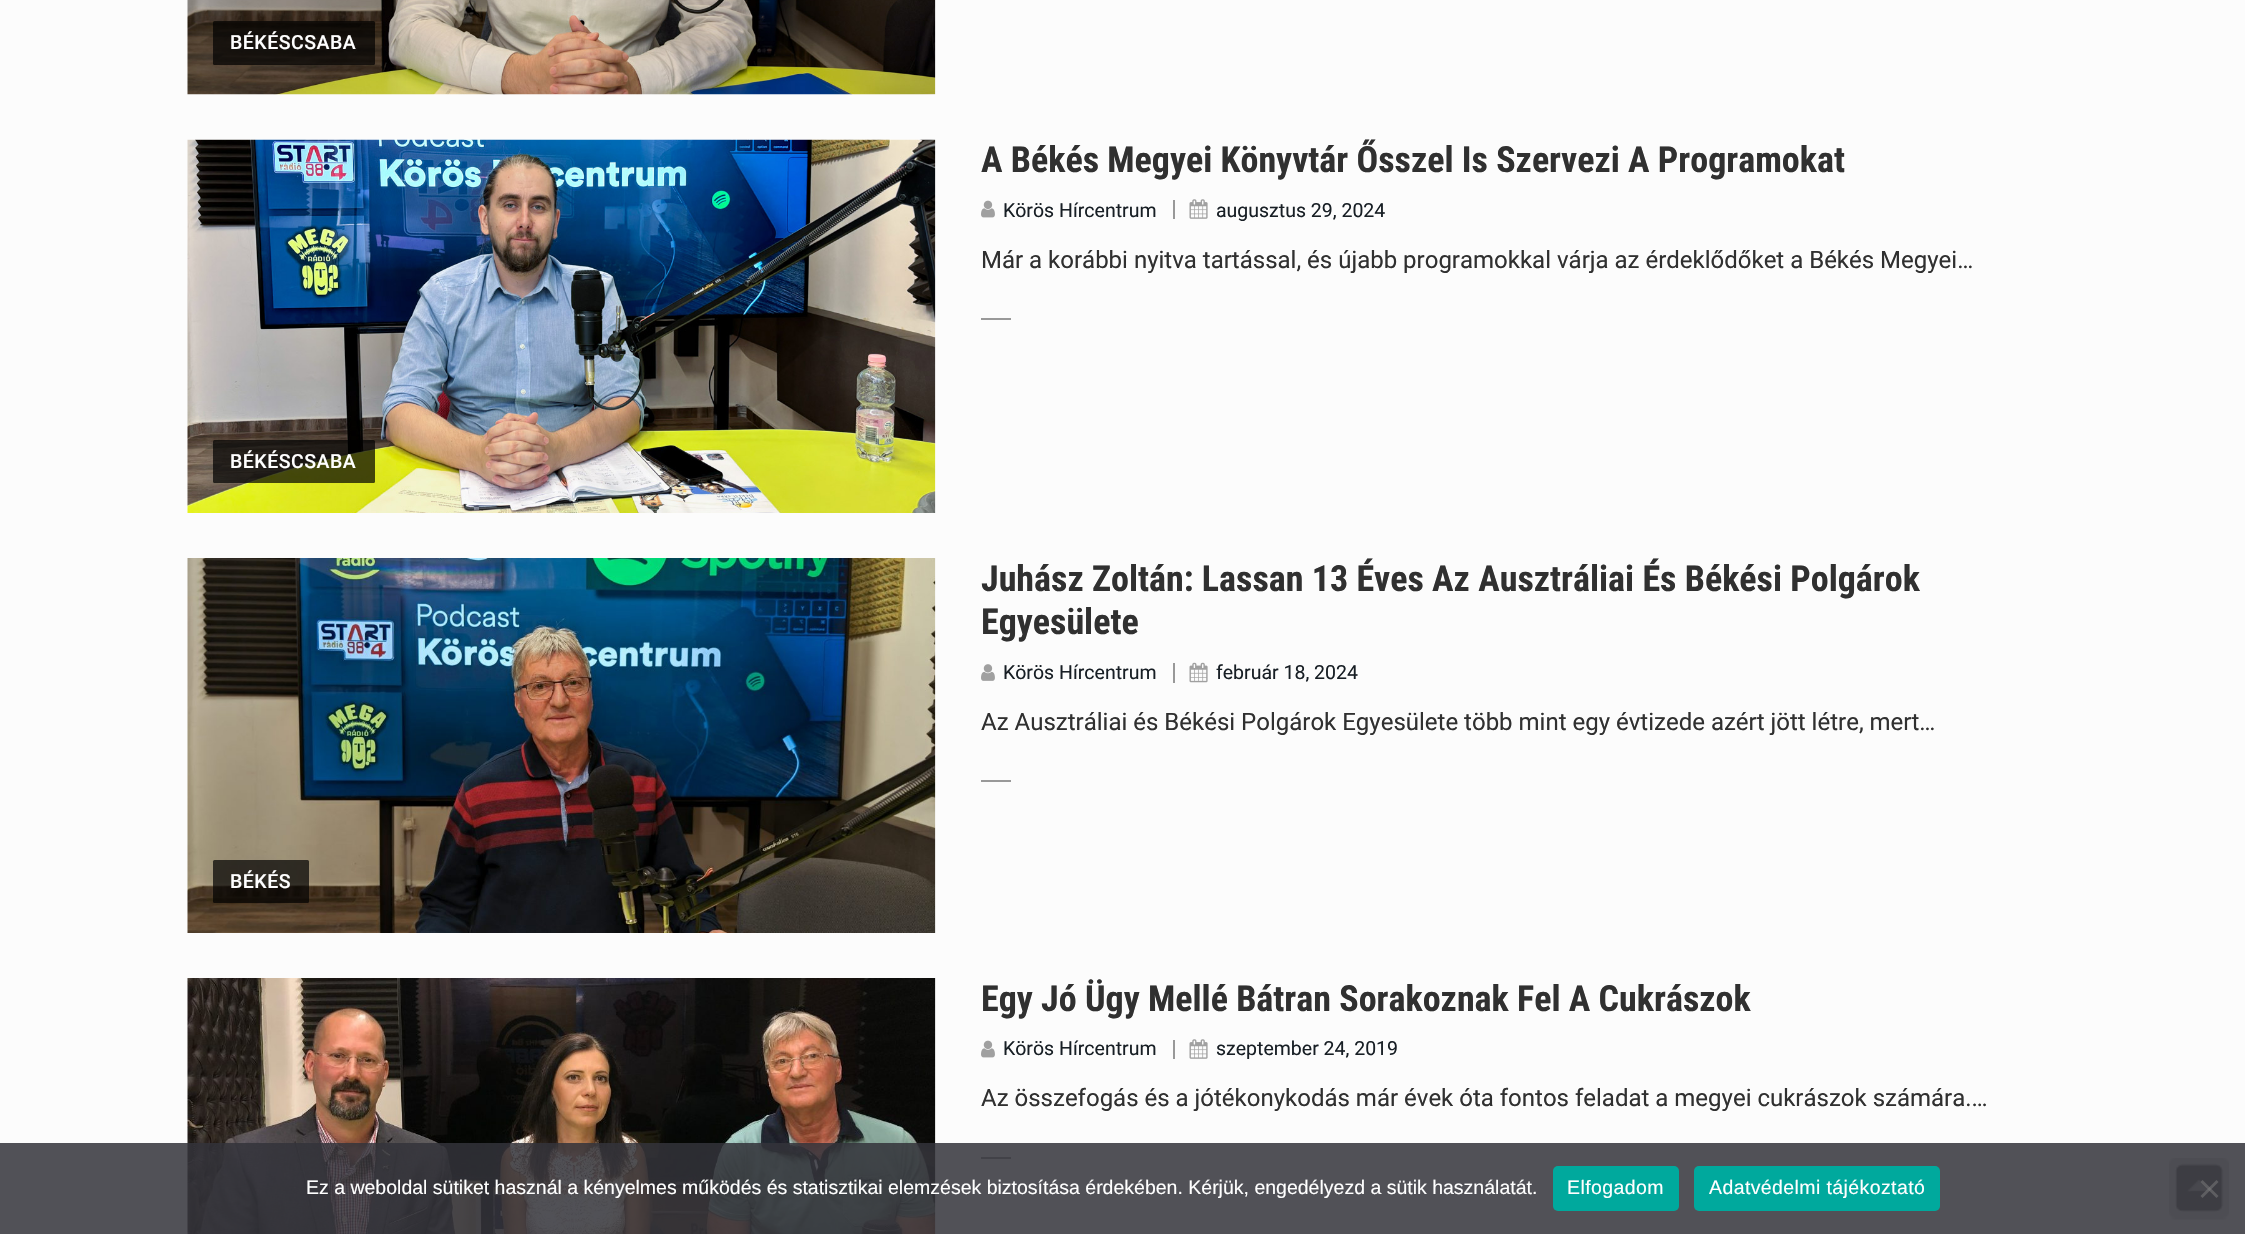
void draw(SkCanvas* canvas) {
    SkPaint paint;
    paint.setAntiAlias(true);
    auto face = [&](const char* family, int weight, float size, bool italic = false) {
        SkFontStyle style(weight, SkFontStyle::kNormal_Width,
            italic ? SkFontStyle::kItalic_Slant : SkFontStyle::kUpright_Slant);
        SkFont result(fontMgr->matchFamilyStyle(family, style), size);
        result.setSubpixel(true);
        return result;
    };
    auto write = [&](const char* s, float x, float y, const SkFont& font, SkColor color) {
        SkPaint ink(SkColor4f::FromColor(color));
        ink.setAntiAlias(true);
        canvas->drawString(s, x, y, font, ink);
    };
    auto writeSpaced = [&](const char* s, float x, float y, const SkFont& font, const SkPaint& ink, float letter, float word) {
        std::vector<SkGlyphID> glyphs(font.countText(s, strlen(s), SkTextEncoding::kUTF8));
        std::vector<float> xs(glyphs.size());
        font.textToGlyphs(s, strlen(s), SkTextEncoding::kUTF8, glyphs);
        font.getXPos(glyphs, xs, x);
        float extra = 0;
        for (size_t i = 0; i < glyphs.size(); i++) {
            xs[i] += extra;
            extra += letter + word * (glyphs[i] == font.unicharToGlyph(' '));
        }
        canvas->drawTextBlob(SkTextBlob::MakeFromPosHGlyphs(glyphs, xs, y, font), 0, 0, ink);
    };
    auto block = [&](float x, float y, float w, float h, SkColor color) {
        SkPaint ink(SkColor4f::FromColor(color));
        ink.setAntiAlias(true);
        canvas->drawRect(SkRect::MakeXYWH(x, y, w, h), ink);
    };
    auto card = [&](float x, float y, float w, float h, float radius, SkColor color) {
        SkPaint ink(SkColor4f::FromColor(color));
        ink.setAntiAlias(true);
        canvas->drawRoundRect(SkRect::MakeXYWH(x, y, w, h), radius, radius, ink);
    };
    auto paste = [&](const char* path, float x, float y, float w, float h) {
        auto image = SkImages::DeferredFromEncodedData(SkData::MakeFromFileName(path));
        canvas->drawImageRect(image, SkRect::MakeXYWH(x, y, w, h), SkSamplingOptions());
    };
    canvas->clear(SkColorSetRGB(252, 252, 252));
    paste("pic1.png", 187, 0, 749, 95);
    card(213, 21, 162, 44, 1.5f, SkColorSetARGB(179, 0, 0, 0));
    auto kFont1 = face("Roboto", 500, 19.5f);
    paint.setColor(SK_ColorWHITE);
    writeSpaced("BÉKÉSCSABA", 230, 49, kFont1, paint, 0.5f, 0);
    auto kFont2 = face("Roboto Condensed", 700, 36);
    write("A Békés Megyei Könyvtár Ősszel Is Szervezi A Programokat", 981, 172, kFont2, SkColorSetRGB(48, 48, 48));
    paste("pic2.png", 981, 200, 14, 18);
    auto kFont3 = face("Roboto", 400, 19.5f);
    write("Körös Hírcentrum", 1003, 217, kFont3, SkColorSetRGB(24, 31, 37));
    block(1173, 200, 2, 19, SkColorSetRGB(153, 153, 153));
    paste("pic3.png", 1189, 199, 19, 20);
    write("augusztus 29, 2024", 1216, 217, kFont3, SkColorSetRGB(24, 31, 37));
    auto kFont4 = face("Roboto", 400, 24);
    write("Már a korábbi nyitva tartással, és újabb programokkal várja az érdeklődőket a Békés Megyei…", 981, 268, kFont4, SkColorSetRGB(48, 48, 48));
    block(981, 318, 30, 2, SkColorSetRGB(153, 153, 153));
    paste("pic4.png", 187, 139, 749, 374);
    card(213, 440, 162, 43, 1.5f, SkColorSetARGB(179, 0, 0, 0));
    writeSpaced("BÉKÉSCSABA", 230, 468, kFont1, paint, 0.5f, 0);
    write("Juhász Zoltán: Lassan 13 Éves Az Ausztráliai És Békési Polgárok", 981, 591, kFont2, SkColorSetRGB(48, 48, 48));
    write("Egyesülete", 981, 634, kFont2, SkColorSetRGB(48, 48, 48));
    paste("pic5.png", 981, 664, 14, 17);
    write("Körös Hírcentrum", 1003, 679, kFont3, SkColorSetRGB(24, 31, 37));
    block(1173, 663, 2, 20, SkColorSetRGB(153, 153, 153));
    paste("pic6.png", 1189, 662, 19, 21);
    write("február 18, 2024", 1216, 679, kFont3, SkColorSetRGB(24, 31, 37));
    write("Az Ausztráliai és Békési Polgárok Egyesülete több mint egy évtizede azért jött létre, mert…", 981, 730, kFont4, SkColorSetRGB(48, 48, 48));
    block(981, 780, 30, 2, SkColorSetRGB(153, 153, 153));
    paste("pic7.png", 187, 558, 749, 375);
    card(213, 860, 96, 43, 1.5f, SkColorSetARGB(179, 0, 0, 0));
    writeSpaced("BÉKÉS", 230, 888, kFont1, paint, 0.5f, 0);
    paste("pic8.png", 187, 978, 749, 256);
    write("Egy Jó Ügy Mellé Bátran Sorakoznak Fel A Cukrászok", 981, 1011, kFont2, SkColorSetRGB(48, 48, 48));
    paste("pic2.png", 981, 1040, 14, 18);
    write("Körös Hírcentrum", 1003, 1055, kFont3, SkColorSetRGB(24, 31, 37));
    block(1173, 1040, 2, 19, SkColorSetRGB(153, 153, 153));
    paste("pic3.png", 1189, 1039, 19, 20);
    write("szeptember 24, 2019", 1216, 1055, kFont3, SkColorSetRGB(24, 31, 37));
    write("Az összefogás és a jótékonykodás már évek óta fontos feladat a megyei cukrászok számára.…", 981, 1106, kFont4, SkColorSetRGB(48, 48, 48));
    block(981, 1157, 30, 2, SkColorSetRGB(153, 153, 153));
    paste("pic9.png", 2169, 1158, 60, 62);
    block(0, 1143, 2245, 91, SkColorSetARGB(217, 50, 50, 58));
    auto kFont5 = face("Liberation Sans", 400, 19.5f);
    write("Ez a weboldal sütiket használ a kényelmes működés és statisztikai elemzések biztosítása érdekében. Kérjük, engedélyezd a sütik használatát.", 306, 1194, kFont5, SK_ColorWHITE);
    card(1553, 1166, 126, 45, 5, SkColorSetRGB(0, 169, 157));
    writeSpaced("Elfogadom", 1567, 1194, kFont5, paint, 0.4f, 0);
    card(1694, 1166, 246, 45, 5, SkColorSetRGB(0, 169, 157));
    writeSpaced("Adatvédelmi tájékoztató", 1709, 1194, kFont5, paint, 0.4f, 0);
    paint.setColor(SkColorSetARGB(128, 128, 128, 128));
    canvas->drawPath(SkPathBuilder().moveTo(2216.5f, 1180).lineTo(2218.5f, 1182).lineTo(2202.5f, 1198).lineTo(2200.5f, 1196).close().detach(), paint);
    canvas->drawPath(SkPathBuilder().moveTo(2200.5f, 1182).lineTo(2202.5f, 1180).lineTo(2218.5f, 1196).lineTo(2216.5f, 1198).close().detach(), paint);
}
